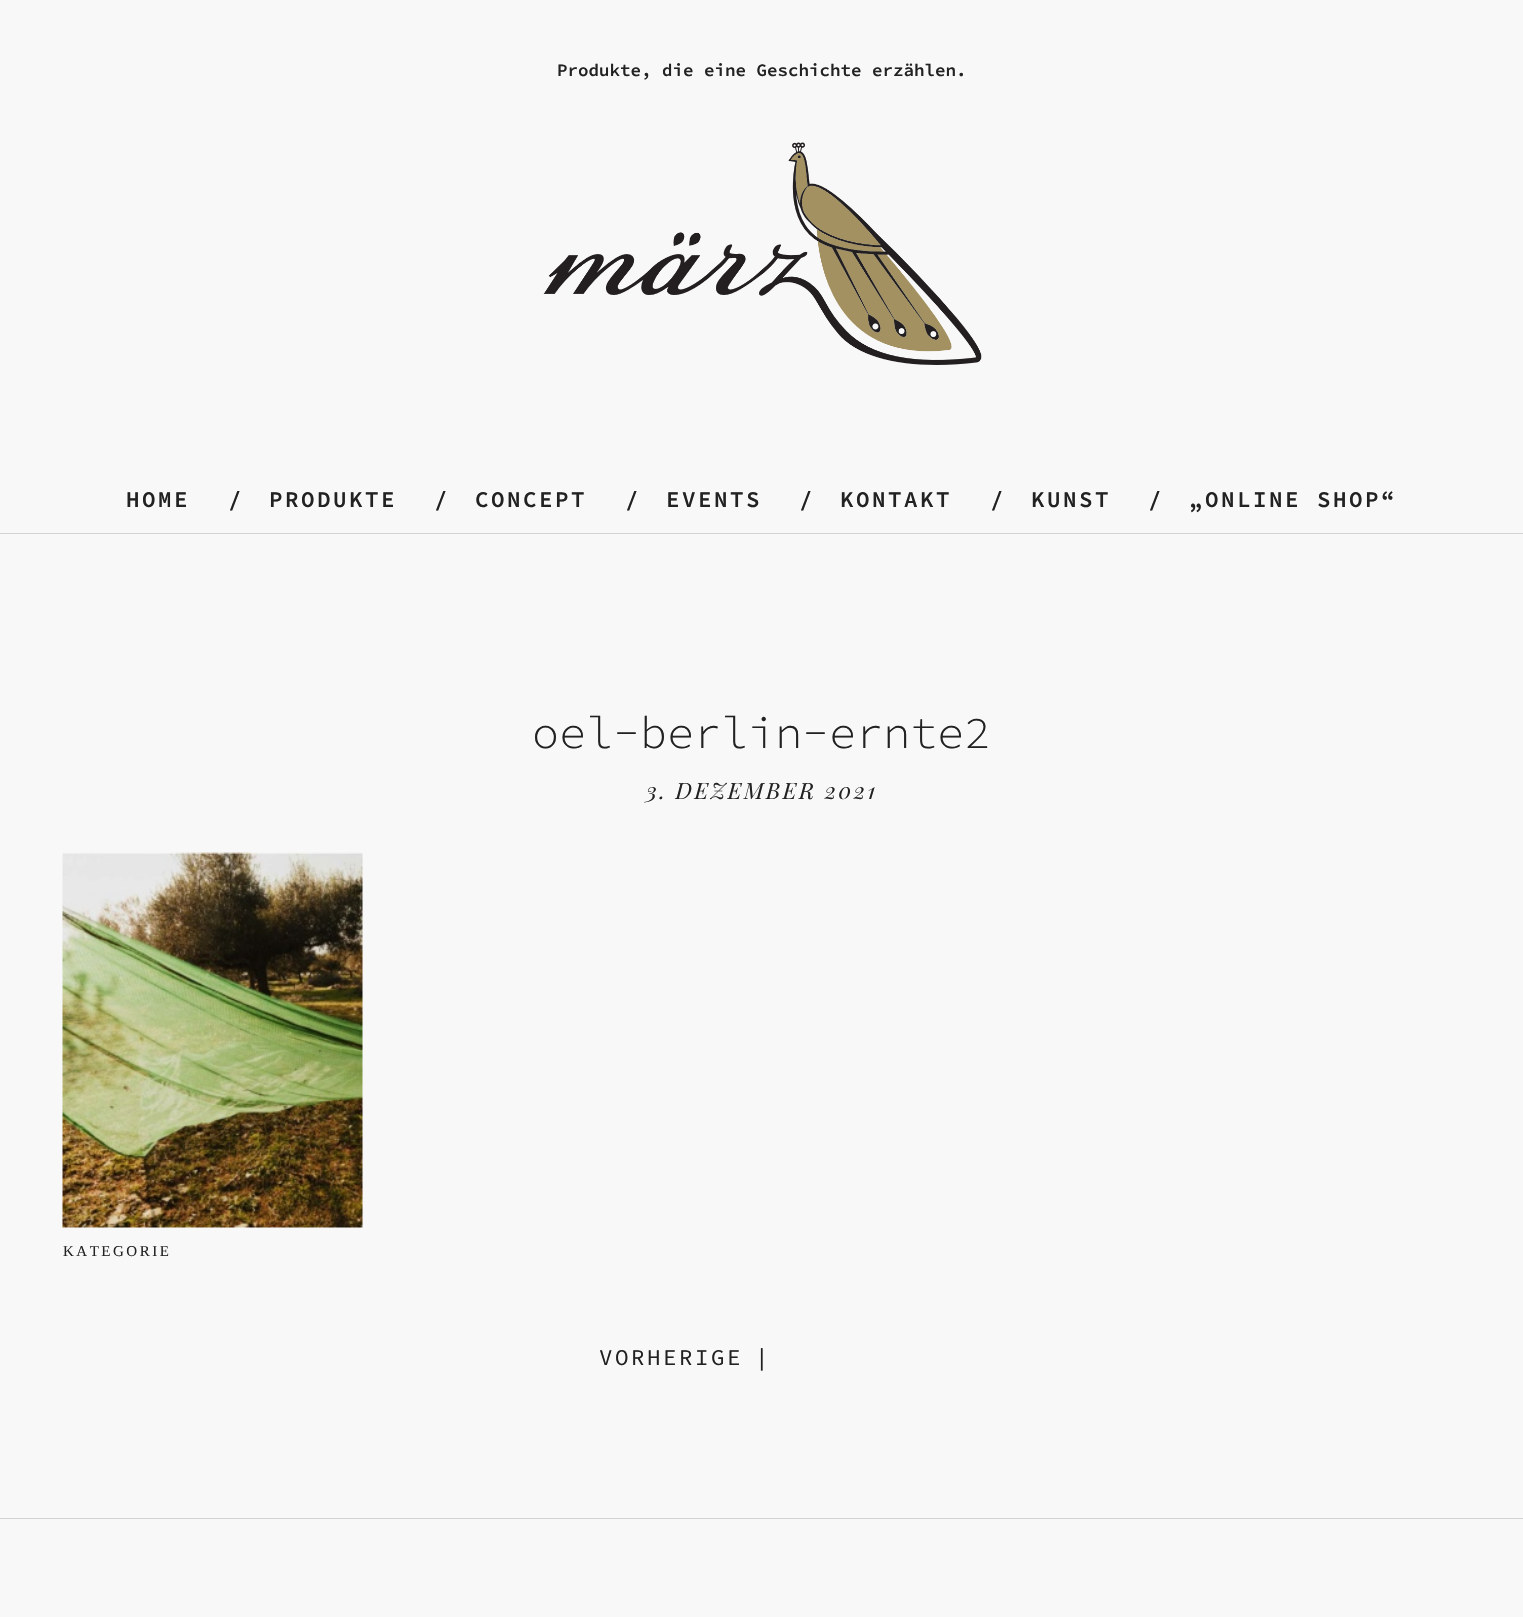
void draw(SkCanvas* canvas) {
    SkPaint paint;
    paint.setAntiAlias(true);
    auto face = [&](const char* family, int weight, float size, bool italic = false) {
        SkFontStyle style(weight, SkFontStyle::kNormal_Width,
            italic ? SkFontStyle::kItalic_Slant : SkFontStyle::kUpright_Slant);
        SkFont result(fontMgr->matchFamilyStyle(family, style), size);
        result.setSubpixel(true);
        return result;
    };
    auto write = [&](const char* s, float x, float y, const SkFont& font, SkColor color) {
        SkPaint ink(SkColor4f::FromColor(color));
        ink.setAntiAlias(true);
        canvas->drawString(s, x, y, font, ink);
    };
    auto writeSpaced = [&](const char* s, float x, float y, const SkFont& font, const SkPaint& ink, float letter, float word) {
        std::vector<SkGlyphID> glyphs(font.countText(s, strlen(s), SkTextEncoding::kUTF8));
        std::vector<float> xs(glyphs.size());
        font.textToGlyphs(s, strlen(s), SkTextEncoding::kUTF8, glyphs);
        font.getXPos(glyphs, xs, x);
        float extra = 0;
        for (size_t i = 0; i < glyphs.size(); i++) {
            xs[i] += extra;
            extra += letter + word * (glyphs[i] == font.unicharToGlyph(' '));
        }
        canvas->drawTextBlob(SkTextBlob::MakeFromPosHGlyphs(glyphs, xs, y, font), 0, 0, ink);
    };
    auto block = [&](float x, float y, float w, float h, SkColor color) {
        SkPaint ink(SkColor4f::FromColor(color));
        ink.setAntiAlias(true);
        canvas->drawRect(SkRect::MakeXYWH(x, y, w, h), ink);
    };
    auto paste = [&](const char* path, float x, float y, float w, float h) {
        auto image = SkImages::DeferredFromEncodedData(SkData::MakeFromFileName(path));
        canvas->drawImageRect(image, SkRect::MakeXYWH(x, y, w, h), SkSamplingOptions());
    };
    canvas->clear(SkColorSetRGB(248, 248, 248));
    auto kFont1 = face("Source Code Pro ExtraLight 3", 200, 17.5f);
    write("Produkte, die eine Geschichte erzählen.", 557, 76, kFont1, SkColorSetRGB(34, 34, 34));
    paste("pic1.png", 543, 142, 439, 223);
    block(0, 533, 1523, 1, SkColorSetRGB(211, 211, 211));
    auto kFont2 = face("Source Code Pro ExtraLight 3", 200, 22.5f);
    paint.setColor(SkColorSetRGB(34, 34, 34));
    writeSpaced("HOME", 126, 507, kFont2, paint, 2.5f, 0);
    writeSpaced("/", 228, 507, kFont2, paint, 2.5f, 0);
    writeSpaced("PRODUKTE", 269, 507, kFont2, paint, 2.5f, 0);
    writeSpaced("/", 434, 507, kFont2, paint, 2.5f, 0);
    writeSpaced("CONCEPT", 475, 507, kFont2, paint, 2.5f, 0);
    writeSpaced("/", 625, 507, kFont2, paint, 2.5f, 0);
    writeSpaced("EVENTS", 666, 507, kFont2, paint, 2.5f, 0);
    writeSpaced("/", 799, 507, kFont2, paint, 2.5f, 0);
    writeSpaced("KONTAKT", 840, 507, kFont2, paint, 2.5f, 0);
    writeSpaced("/", 990, 507, kFont2, paint, 2.5f, 0);
    writeSpaced("KUNST", 1031, 507, kFont2, paint, 2.5f, 0);
    writeSpaced("/", 1148, 507, kFont2, paint, 2.5f, 0);
    writeSpaced("„ONLINE SHOP“", 1189, 507, kFont2, paint, 2.5f, 0);
    block(0, 1518, 1523, 1, SkColorSetRGB(211, 211, 211));
    auto kFont3 = face("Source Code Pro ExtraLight", 200, 45);
    write("oel-berlin-ernte2", 532, 748, kFont3, SkColorSetRGB(34, 34, 34));
    auto kFont4 = face("Playfair Display", 400, 22.5f, true);
    writeSpaced("3. DEZEMBER 2021", 646, 799, kFont4, paint, 2.5f, 0);
    paste("pic2.png", 62, 852, 301, 376);
    auto kFont5 = face("Liberation Serif", 400, 15);
    writeSpaced("KATEGORIE", 63, 1256, kFont5, paint, 2.5f, 0);
    auto kFont6 = face("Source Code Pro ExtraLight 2", 200, 22.5f);
    writeSpaced("VORHERIGE", 599, 1365, kFont6, paint, 2.5f, 0);
    write("|", 755, 1365, kFont6, SkColorSetRGB(34, 34, 34));
}
